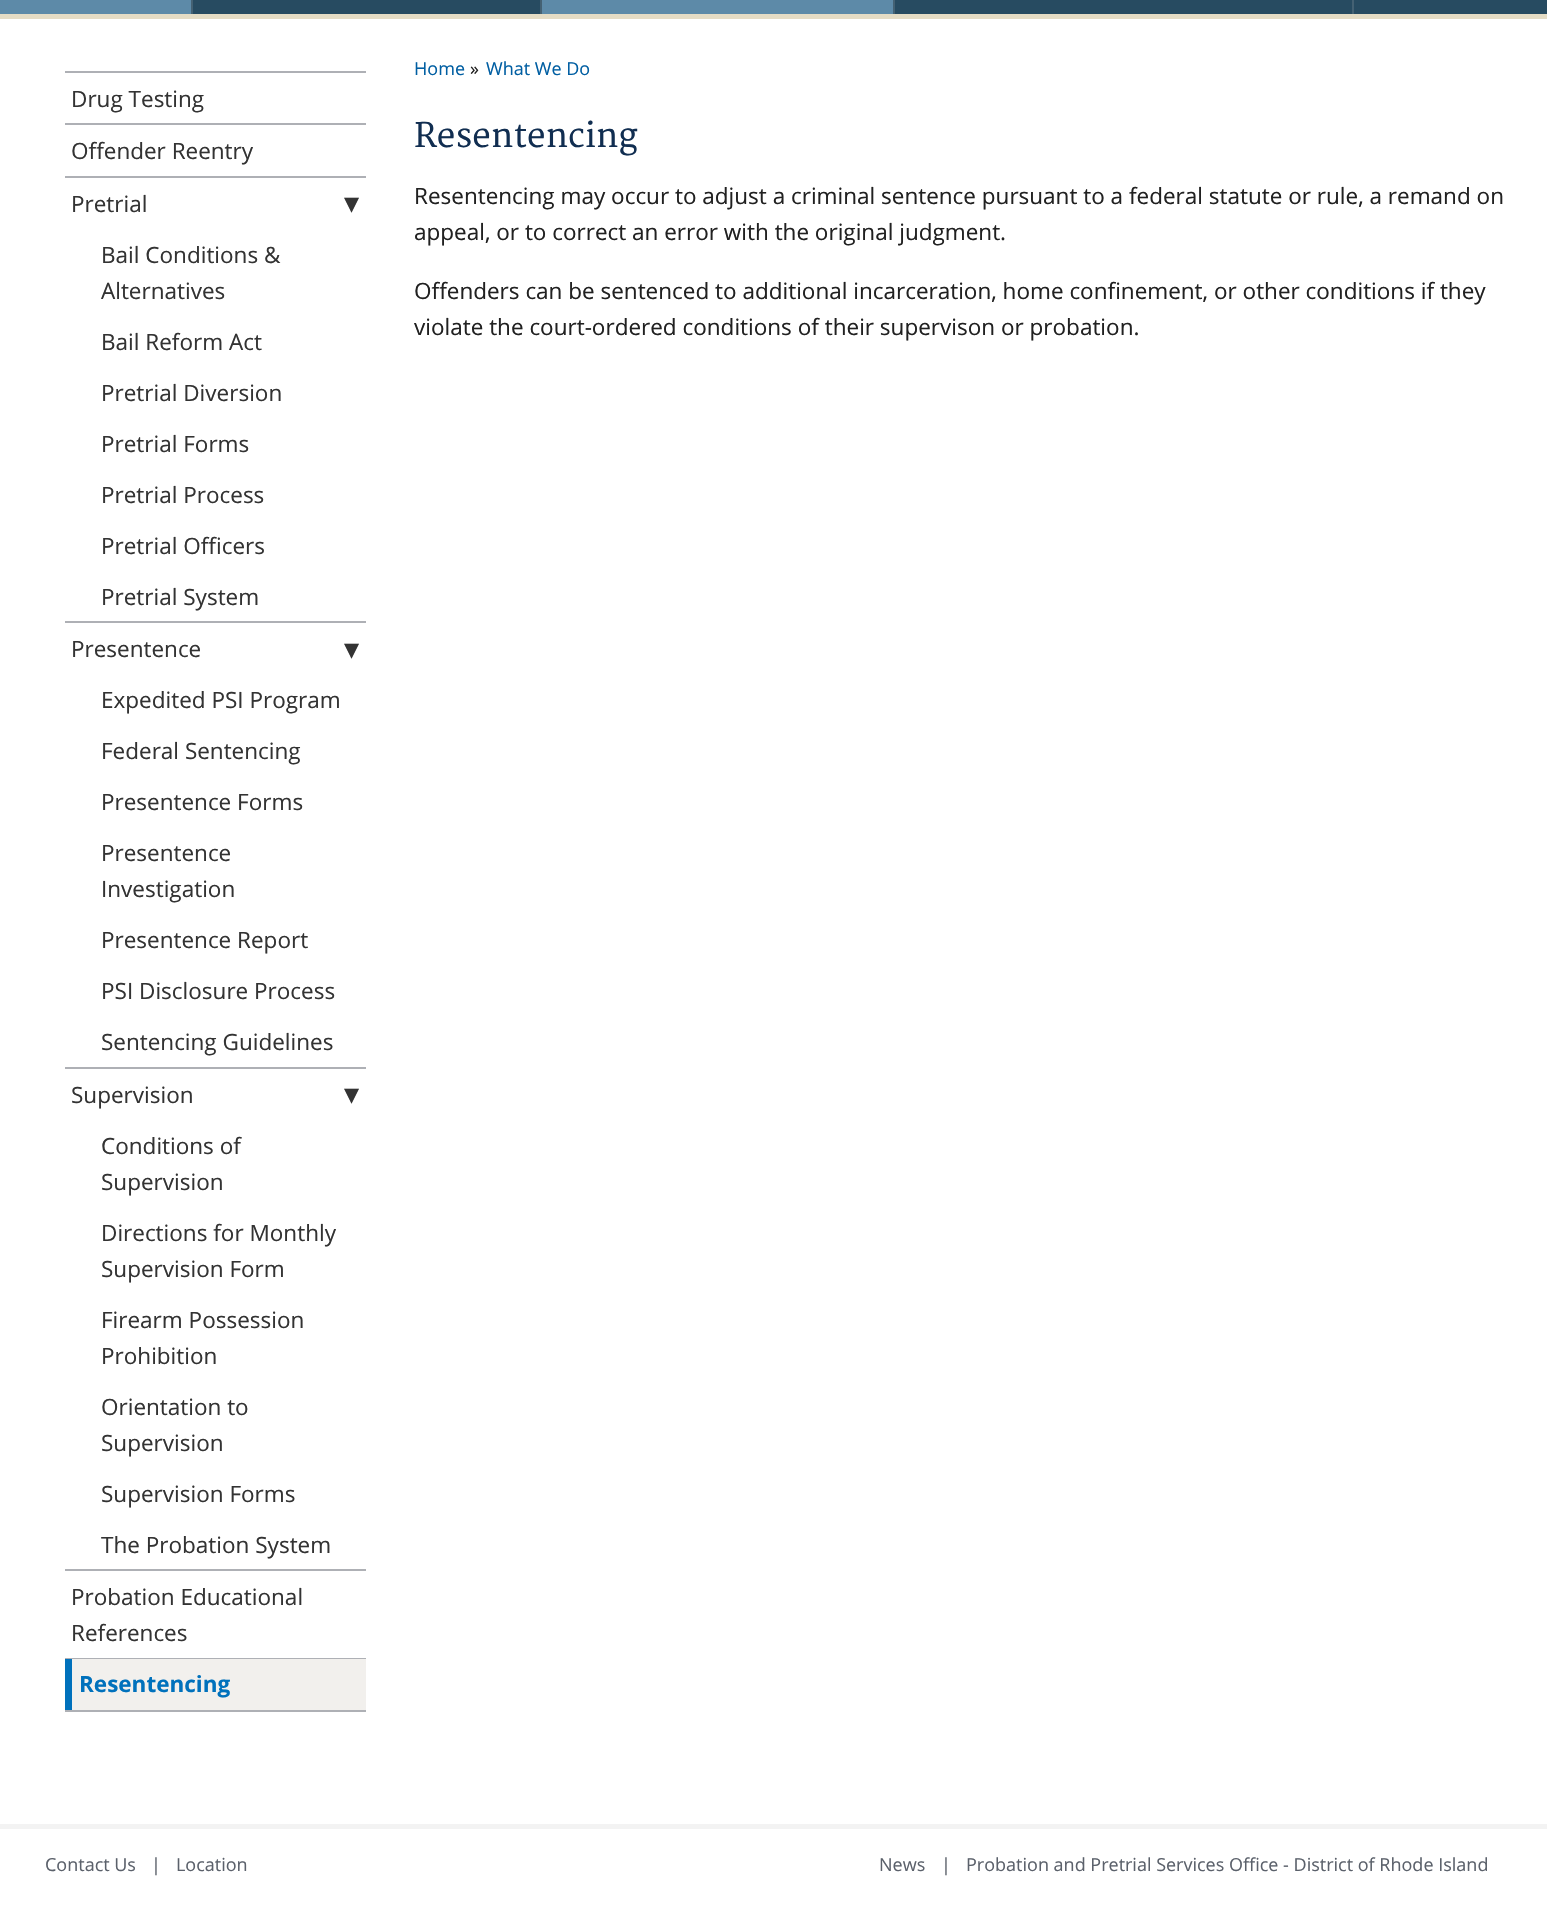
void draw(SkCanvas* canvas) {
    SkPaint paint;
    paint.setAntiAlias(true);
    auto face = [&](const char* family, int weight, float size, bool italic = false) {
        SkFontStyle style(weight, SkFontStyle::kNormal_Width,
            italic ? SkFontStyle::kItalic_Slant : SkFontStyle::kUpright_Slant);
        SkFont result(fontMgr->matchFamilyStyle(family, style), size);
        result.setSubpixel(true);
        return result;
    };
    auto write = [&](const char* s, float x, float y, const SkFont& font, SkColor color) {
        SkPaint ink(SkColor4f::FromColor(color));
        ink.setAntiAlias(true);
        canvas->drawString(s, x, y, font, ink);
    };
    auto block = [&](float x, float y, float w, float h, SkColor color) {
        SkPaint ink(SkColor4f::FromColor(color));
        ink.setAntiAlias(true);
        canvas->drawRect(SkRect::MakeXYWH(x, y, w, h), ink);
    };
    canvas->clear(SK_ColorWHITE);
    block(193, 0, 1354, 14, SkColorSetRGB(39, 75, 97));
    block(0, 14, 1547, 5, SkColorSetRGB(228, 220, 197));
    block(191, 0, 2, 14, SkColorSetRGB(68, 97, 115));
    block(0, 0, 191, 14, SkColorSetRGB(93, 138, 168));
    block(540, 0, 2, 14, SkColorSetRGB(68, 97, 115));
    block(542, 0, 351, 14, SkColorSetRGB(93, 138, 168));
    block(893, 0, 2, 14, SkColorSetRGB(68, 97, 115));
    block(1352, 0, 2, 14, SkColorSetRGB(68, 97, 115));
    block(65, 71, 301, 2, SkColorSetRGB(174, 176, 181));
    auto kFont1 = face("Open Sans", 400, 22.5f);
    write("Drug Testing", 71, 107, kFont1, SkColorSetRGB(51, 51, 51));
    block(65, 123, 301, 2, SkColorSetRGB(174, 176, 181));
    write("Offender Reentry", 71, 159, kFont1, SkColorSetRGB(51, 51, 51));
    block(65, 176, 301, 2, SkColorSetRGB(174, 176, 181));
    write("Pretrial", 71, 212, kFont1, SkColorSetRGB(51, 51, 51));
    auto kFont2 = face("DejaVu Sans", 400, 30);
    write("▾", 344, 213, kFont2, SkColorSetRGB(51, 51, 51));
    write("Bail Conditions &", 101, 263, kFont1, SkColorSetRGB(51, 51, 51));
    write("Alternatives", 101, 299, kFont1, SkColorSetRGB(51, 51, 51));
    write("Bail Reform Act", 101, 350, kFont1, SkColorSetRGB(51, 51, 51));
    write("Pretrial Diversion", 101, 401, kFont1, SkColorSetRGB(51, 51, 51));
    write("Pretrial Forms", 101, 452, kFont1, SkColorSetRGB(51, 51, 51));
    write("Pretrial Process", 101, 503, kFont1, SkColorSetRGB(51, 51, 51));
    write("Pretrial Officers", 101, 554, kFont1, SkColorSetRGB(51, 51, 51));
    write("Pretrial System", 101, 605, kFont1, SkColorSetRGB(51, 51, 51));
    block(65, 621, 301, 2, SkColorSetRGB(174, 176, 181));
    write("Presentence", 71, 657, kFont1, SkColorSetRGB(51, 51, 51));
    write("▾", 344, 659, kFont2, SkColorSetRGB(51, 51, 51));
    write("Expedited PSI Program", 101, 708, kFont1, SkColorSetRGB(51, 51, 51));
    write("Federal Sentencing", 101, 759, kFont1, SkColorSetRGB(51, 51, 51));
    write("Presentence Forms", 101, 810, kFont1, SkColorSetRGB(51, 51, 51));
    write("Presentence", 101, 861, kFont1, SkColorSetRGB(51, 51, 51));
    write("Investigation", 101, 897, kFont1, SkColorSetRGB(51, 51, 51));
    write("Presentence Report", 101, 948, kFont1, SkColorSetRGB(51, 51, 51));
    write("PSI Disclosure Process", 101, 999, kFont1, SkColorSetRGB(51, 51, 51));
    write("Sentencing Guidelines", 101, 1050, kFont1, SkColorSetRGB(51, 51, 51));
    block(65, 1067, 301, 2, SkColorSetRGB(174, 176, 181));
    write("Supervision", 71, 1103, kFont1, SkColorSetRGB(51, 51, 51));
    write("▾", 344, 1104, kFont2, SkColorSetRGB(51, 51, 51));
    write("Conditions of", 101, 1154, kFont1, SkColorSetRGB(51, 51, 51));
    write("Supervision", 101, 1190, kFont1, SkColorSetRGB(51, 51, 51));
    write("Directions for Monthly", 101, 1241, kFont1, SkColorSetRGB(51, 51, 51));
    write("Supervision Form", 101, 1277, kFont1, SkColorSetRGB(51, 51, 51));
    write("Firearm Possession", 101, 1328, kFont1, SkColorSetRGB(51, 51, 51));
    write("Prohibition", 101, 1364, kFont1, SkColorSetRGB(51, 51, 51));
    write("Orientation to", 101, 1415, kFont1, SkColorSetRGB(51, 51, 51));
    write("Supervision", 101, 1451, kFont1, SkColorSetRGB(51, 51, 51));
    write("Supervision Forms", 101, 1502, kFont1, SkColorSetRGB(51, 51, 51));
    write("The Probation System", 101, 1553, kFont1, SkColorSetRGB(51, 51, 51));
    block(65, 1569, 301, 2, SkColorSetRGB(174, 176, 181));
    write("Probation Educational", 71, 1605, kFont1, SkColorSetRGB(51, 51, 51));
    write("References", 71, 1641, kFont1, SkColorSetRGB(51, 51, 51));
    block(65, 1658, 301, 1, SkColorSetRGB(174, 176, 181));
    block(65, 1710, 301, 2, SkColorSetRGB(174, 176, 181));
    block(72, 1659, 294, 51, SkColorSetRGB(242, 240, 237));
    block(65, 1659, 7, 51, SkColorSetRGB(0, 113, 188));
    auto kFont3 = face("Open Sans", 700, 22.5f);
    write("Resentencing", 79, 1692, kFont3, SkColorSetRGB(0, 113, 188));
    auto kFont4 = face("Open Sans", 400, 18);
    write("Home", 414, 75, kFont4, SkColorSetRGB(0, 94, 162));
    write("»", 470, 75, kFont4, SkColorSetRGB(33, 33, 33));
    write("What We Do", 486, 75, kFont4, SkColorSetRGB(0, 94, 162));
    auto kFont5 = face("Merriweather", 400, 33);
    write("Resentencing", 414, 147, kFont5, SkColorSetRGB(17, 46, 81));
    write("Resentencing may occur to adjust a criminal sentence pursuant to a federal statute or rule, a remand on", 414, 204, kFont1, SkColorSetRGB(33, 33, 33));
    write("appeal, or to correct an error with the original judgment.", 414, 240, kFont1, SkColorSetRGB(33, 33, 33));
    write("Offenders can be sentenced to additional incarceration, home confinement, or other conditions if they", 414, 299, kFont1, SkColorSetRGB(33, 33, 33));
    write("violate the court-ordered conditions of their supervison or probation.", 414, 335, kFont1, SkColorSetRGB(33, 33, 33));
    block(0, 1824, 1547, 5, SkColorSetRGB(243, 243, 243));
    write("Contact Us", 45, 1871, kFont4, SkColorSetRGB(91, 97, 107));
    write("|", 151, 1871, kFont4, SkColorSetRGB(91, 97, 107));
    write("Location", 176, 1871, kFont4, SkColorSetRGB(91, 97, 107));
    write("News", 879, 1871, kFont4, SkColorSetRGB(91, 97, 107));
    write("|", 941, 1871, kFont4, SkColorSetRGB(91, 97, 107));
    write("Probation and Pretrial Services Office - District of Rhode Island", 966, 1871, kFont4, SkColorSetRGB(91, 97, 107));
}
